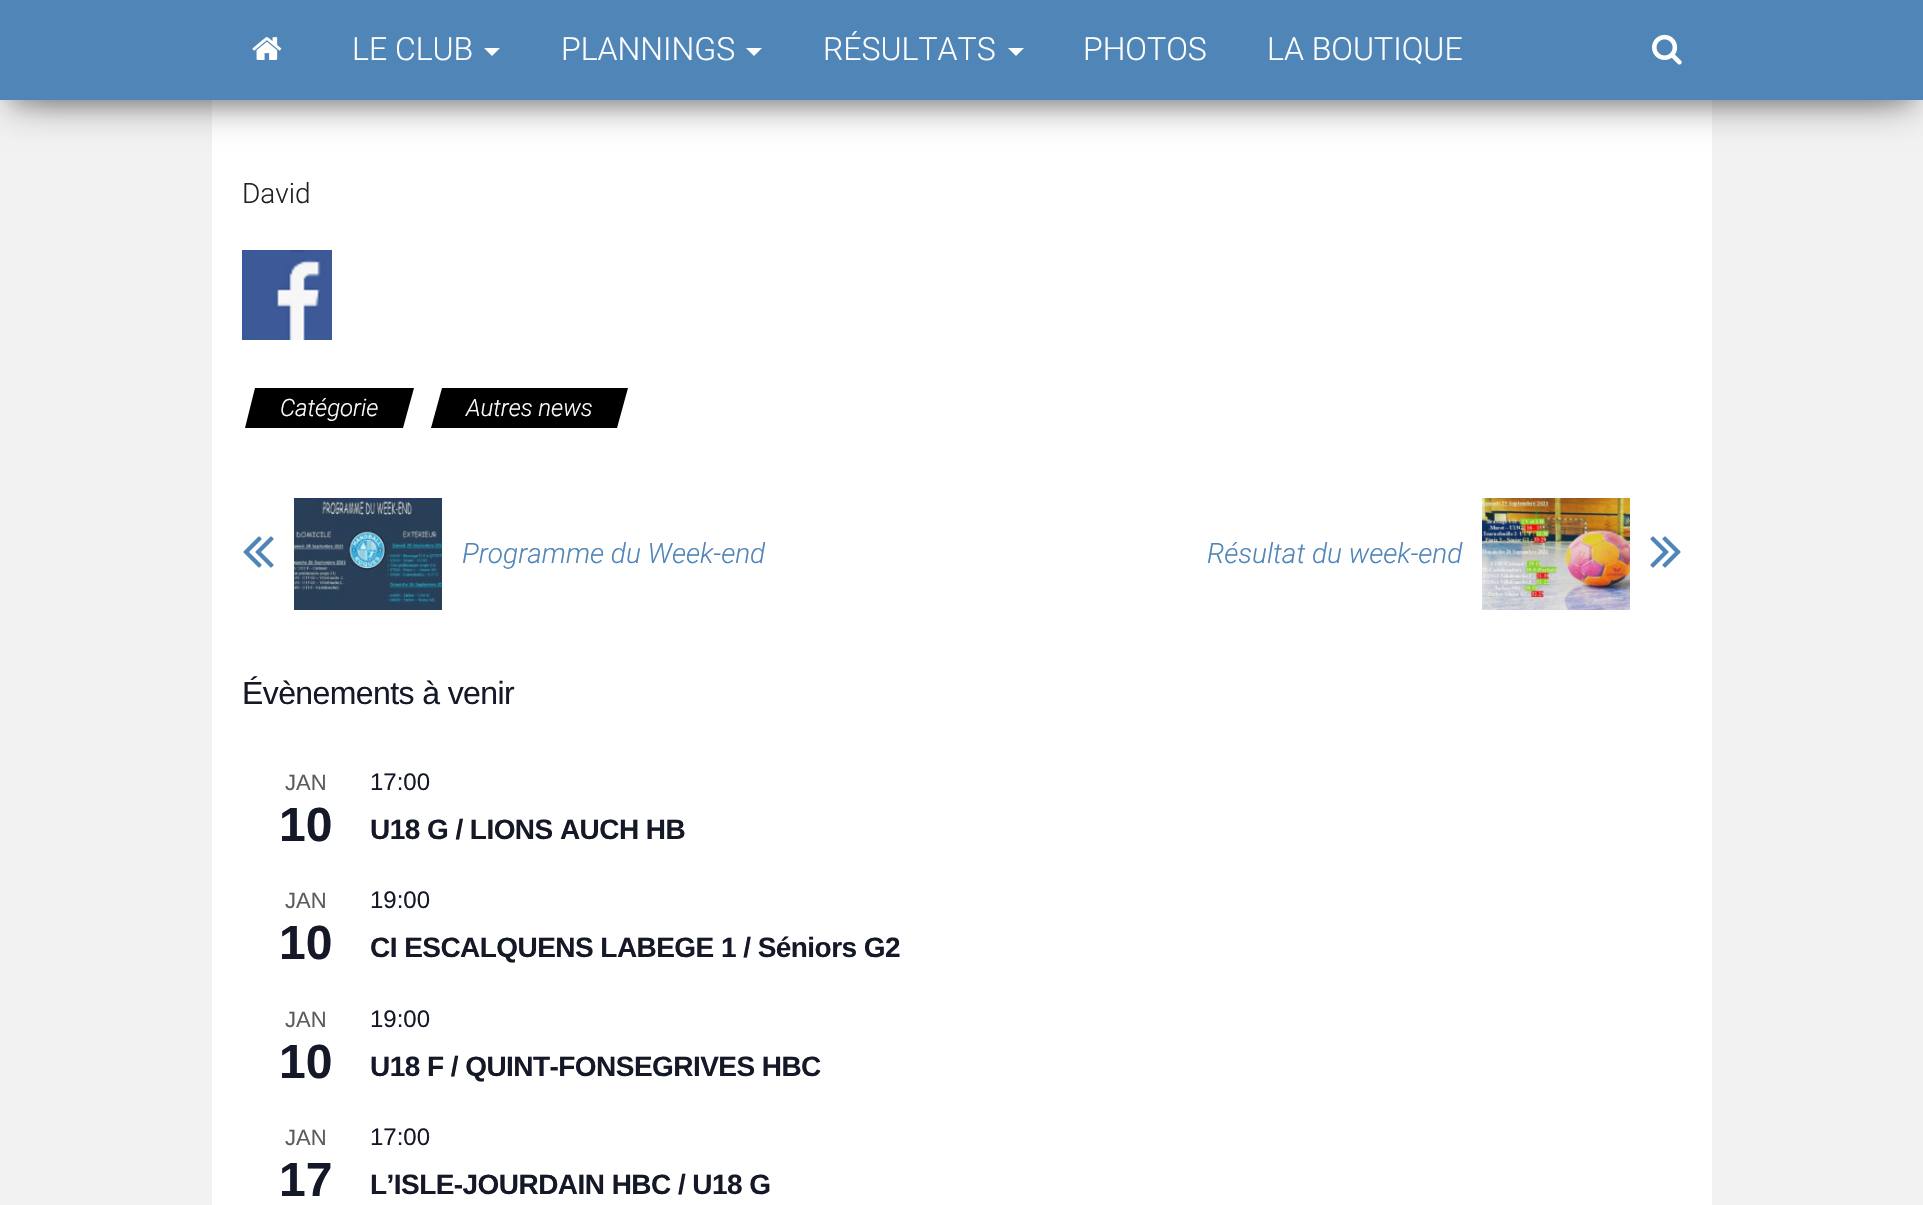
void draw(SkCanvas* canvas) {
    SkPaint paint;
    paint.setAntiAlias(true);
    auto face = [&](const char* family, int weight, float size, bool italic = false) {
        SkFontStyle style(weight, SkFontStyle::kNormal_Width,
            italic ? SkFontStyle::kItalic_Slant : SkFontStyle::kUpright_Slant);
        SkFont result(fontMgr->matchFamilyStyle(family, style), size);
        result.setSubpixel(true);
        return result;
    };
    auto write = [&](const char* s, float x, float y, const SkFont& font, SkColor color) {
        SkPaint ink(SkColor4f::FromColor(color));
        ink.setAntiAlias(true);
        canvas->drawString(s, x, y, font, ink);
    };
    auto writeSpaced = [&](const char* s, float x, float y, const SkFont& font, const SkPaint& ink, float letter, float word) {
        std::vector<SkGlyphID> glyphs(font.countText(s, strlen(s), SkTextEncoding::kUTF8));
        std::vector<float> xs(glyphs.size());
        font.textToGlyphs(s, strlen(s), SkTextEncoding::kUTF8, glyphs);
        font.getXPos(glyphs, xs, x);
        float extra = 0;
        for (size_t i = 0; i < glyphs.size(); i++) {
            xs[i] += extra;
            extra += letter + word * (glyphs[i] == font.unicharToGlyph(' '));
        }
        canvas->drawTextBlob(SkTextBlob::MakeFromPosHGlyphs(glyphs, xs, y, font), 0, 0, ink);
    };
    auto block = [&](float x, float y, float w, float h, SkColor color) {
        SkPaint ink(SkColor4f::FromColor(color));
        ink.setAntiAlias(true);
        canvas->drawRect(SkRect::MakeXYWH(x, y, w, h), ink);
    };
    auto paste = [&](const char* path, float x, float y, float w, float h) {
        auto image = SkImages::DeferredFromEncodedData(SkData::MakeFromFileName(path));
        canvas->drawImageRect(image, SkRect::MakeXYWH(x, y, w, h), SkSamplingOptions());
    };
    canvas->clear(SkColorSetRGB(242, 242, 242));
    block(212, 100, 1500, 1105, SK_ColorWHITE);
    paint.setColor(SkColorSetARGB(51, 0, 0, 0));
    paint.setMaskFilter(SkMaskFilter::MakeBlur(kNormal_SkBlurStyle, 10));
    canvas->drawRect(SkRect::MakeXYWH(10, 26, 1904, 80), paint);
    paint.setMaskFilter(nullptr);
    paint.setColor(SkColorSetARGB(31, 0, 0, 0));
    paint.setMaskFilter(SkMaskFilter::MakeBlur(kNormal_SkBlurStyle, 20));
    canvas->drawRect(SkRect::MakeXYWH(0, 6, 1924, 100), paint);
    paint.setMaskFilter(nullptr);
    paint.setColor(SkColorSetARGB(107, 0, 0, 0));
    paint.setMaskFilter(SkMaskFilter::MakeBlur(kNormal_SkBlurStyle, 20));
    canvas->drawRect(SkRect::MakeXYWH(24, 44, 1876, 52), paint);
    paint.setMaskFilter(nullptr);
    block(0, 0, 1923, 100, SkColorSetRGB(79, 133, 183));
    paste("pic1.png", 252, 37, 30, 23);
    auto kFont1 = face("Roboto", 300, 32);
    write("LE CLUB", 352, 60, kFont1, SK_ColorWHITE);
    paint.setColor(SK_ColorWHITE);
    canvas->drawPath(SkPathBuilder().moveTo(484, 48).lineTo(500, 48).lineTo(492, 56).close().detach(), paint);
    write("PLANNINGS", 561, 60, kFont1, SK_ColorWHITE);
    canvas->drawPath(SkPathBuilder().moveTo(746, 48).lineTo(762, 48).lineTo(754, 56).close().detach(), paint);
    write("RÉSULTATS", 823, 60, kFont1, SK_ColorWHITE);
    canvas->drawPath(SkPathBuilder().moveTo(1008, 48).lineTo(1024, 48).lineTo(1016, 56).close().detach(), paint);
    write("PHOTOS", 1083, 60, kFont1, SK_ColorWHITE);
    write("LA BOUTIQUE", 1267, 60, kFont1, SK_ColorWHITE);
    paste("pic2.png", 1652, 34, 30, 31);
    auto kFont2 = face("Roboto", 300, 28);
    write("David", 242, 203, kFont2, SkColorSetRGB(34, 34, 34));
    paste("pic3.png", 242, 250, 90, 90);
    paint.setColor(SK_ColorBLACK);
    canvas->drawPath(SkPathBuilder().moveTo(255, 388).lineTo(414, 388).lineTo(403, 428).lineTo(245, 428).close().detach(), paint);
    auto kFont3 = face("Roboto", 300, 24, true);
    write("Catégorie", 280, 416, kFont3, SK_ColorWHITE);
    canvas->drawPath(SkPathBuilder().moveTo(442, 388).lineTo(628, 388).lineTo(617, 428).lineTo(431, 428).close().detach(), paint);
    write("Autres news", 466, 416, kFont3, SK_ColorWHITE);
    paste("pic4.png", 243, 536, 31, 32);
    paste("pic5.png", 294, 498, 148, 112);
    auto kFont4 = face("Roboto", 300, 28, true);
    write("Programme du Week-end", 462, 563, kFont4, SkColorSetRGB(79, 133, 183));
    write("Résultat du week-end", 1207, 563, kFont4, SkColorSetRGB(79, 133, 183));
    paste("pic6.png", 1482, 498, 148, 112);
    paste("pic7.png", 1650, 536, 31, 32);
    auto kFont5 = face("Liberation Sans", 400, 32);
    paint.setColor(SkColorSetRGB(20, 24, 39));
    writeSpaced("Évènements à venir", 242, 704, kFont5, paint, -0.6f, 0);
    auto kFont6 = face("Liberation Sans", 400, 22);
    write("JAN", 285, 790, kFont6, SkColorSetRGB(93, 93, 93));
    auto kFont7 = face("Liberation Sans", 700, 48);
    write("10", 279, 841, kFont7, SkColorSetRGB(20, 24, 39));
    auto kFont8 = face("Liberation Sans", 400, 24);
    write("17:00", 370, 790, kFont8, SkColorSetRGB(20, 24, 39));
    auto kFont9 = face("Liberation Sans", 700, 28);
    writeSpaced("U18 G / LIONS AUCH HB", 370, 839, kFont9, paint, -0.55f, 0);
    write("JAN", 285, 908, kFont6, SkColorSetRGB(93, 93, 93));
    write("10", 279, 959, kFont7, SkColorSetRGB(20, 24, 39));
    write("19:00", 370, 908, kFont8, SkColorSetRGB(20, 24, 39));
    writeSpaced("CI ESCALQUENS LABEGE 1 / Séniors G2", 370, 957, kFont9, paint, -0.55f, 0);
    write("JAN", 285, 1027, kFont6, SkColorSetRGB(93, 93, 93));
    write("10", 279, 1078, kFont7, SkColorSetRGB(20, 24, 39));
    write("19:00", 370, 1027, kFont8, SkColorSetRGB(20, 24, 39));
    writeSpaced("U18 F / QUINT-FONSEGRIVES HBC", 370, 1076, kFont9, paint, -0.55f, 0);
    write("JAN", 285, 1145, kFont6, SkColorSetRGB(93, 93, 93));
    write("17", 279, 1196, kFont7, SkColorSetRGB(20, 24, 39));
    write("17:00", 370, 1145, kFont8, SkColorSetRGB(20, 24, 39));
    writeSpaced("L’ISLE-JOURDAIN HBC / U18 G", 370, 1194, kFont9, paint, -0.55f, 0);
}
